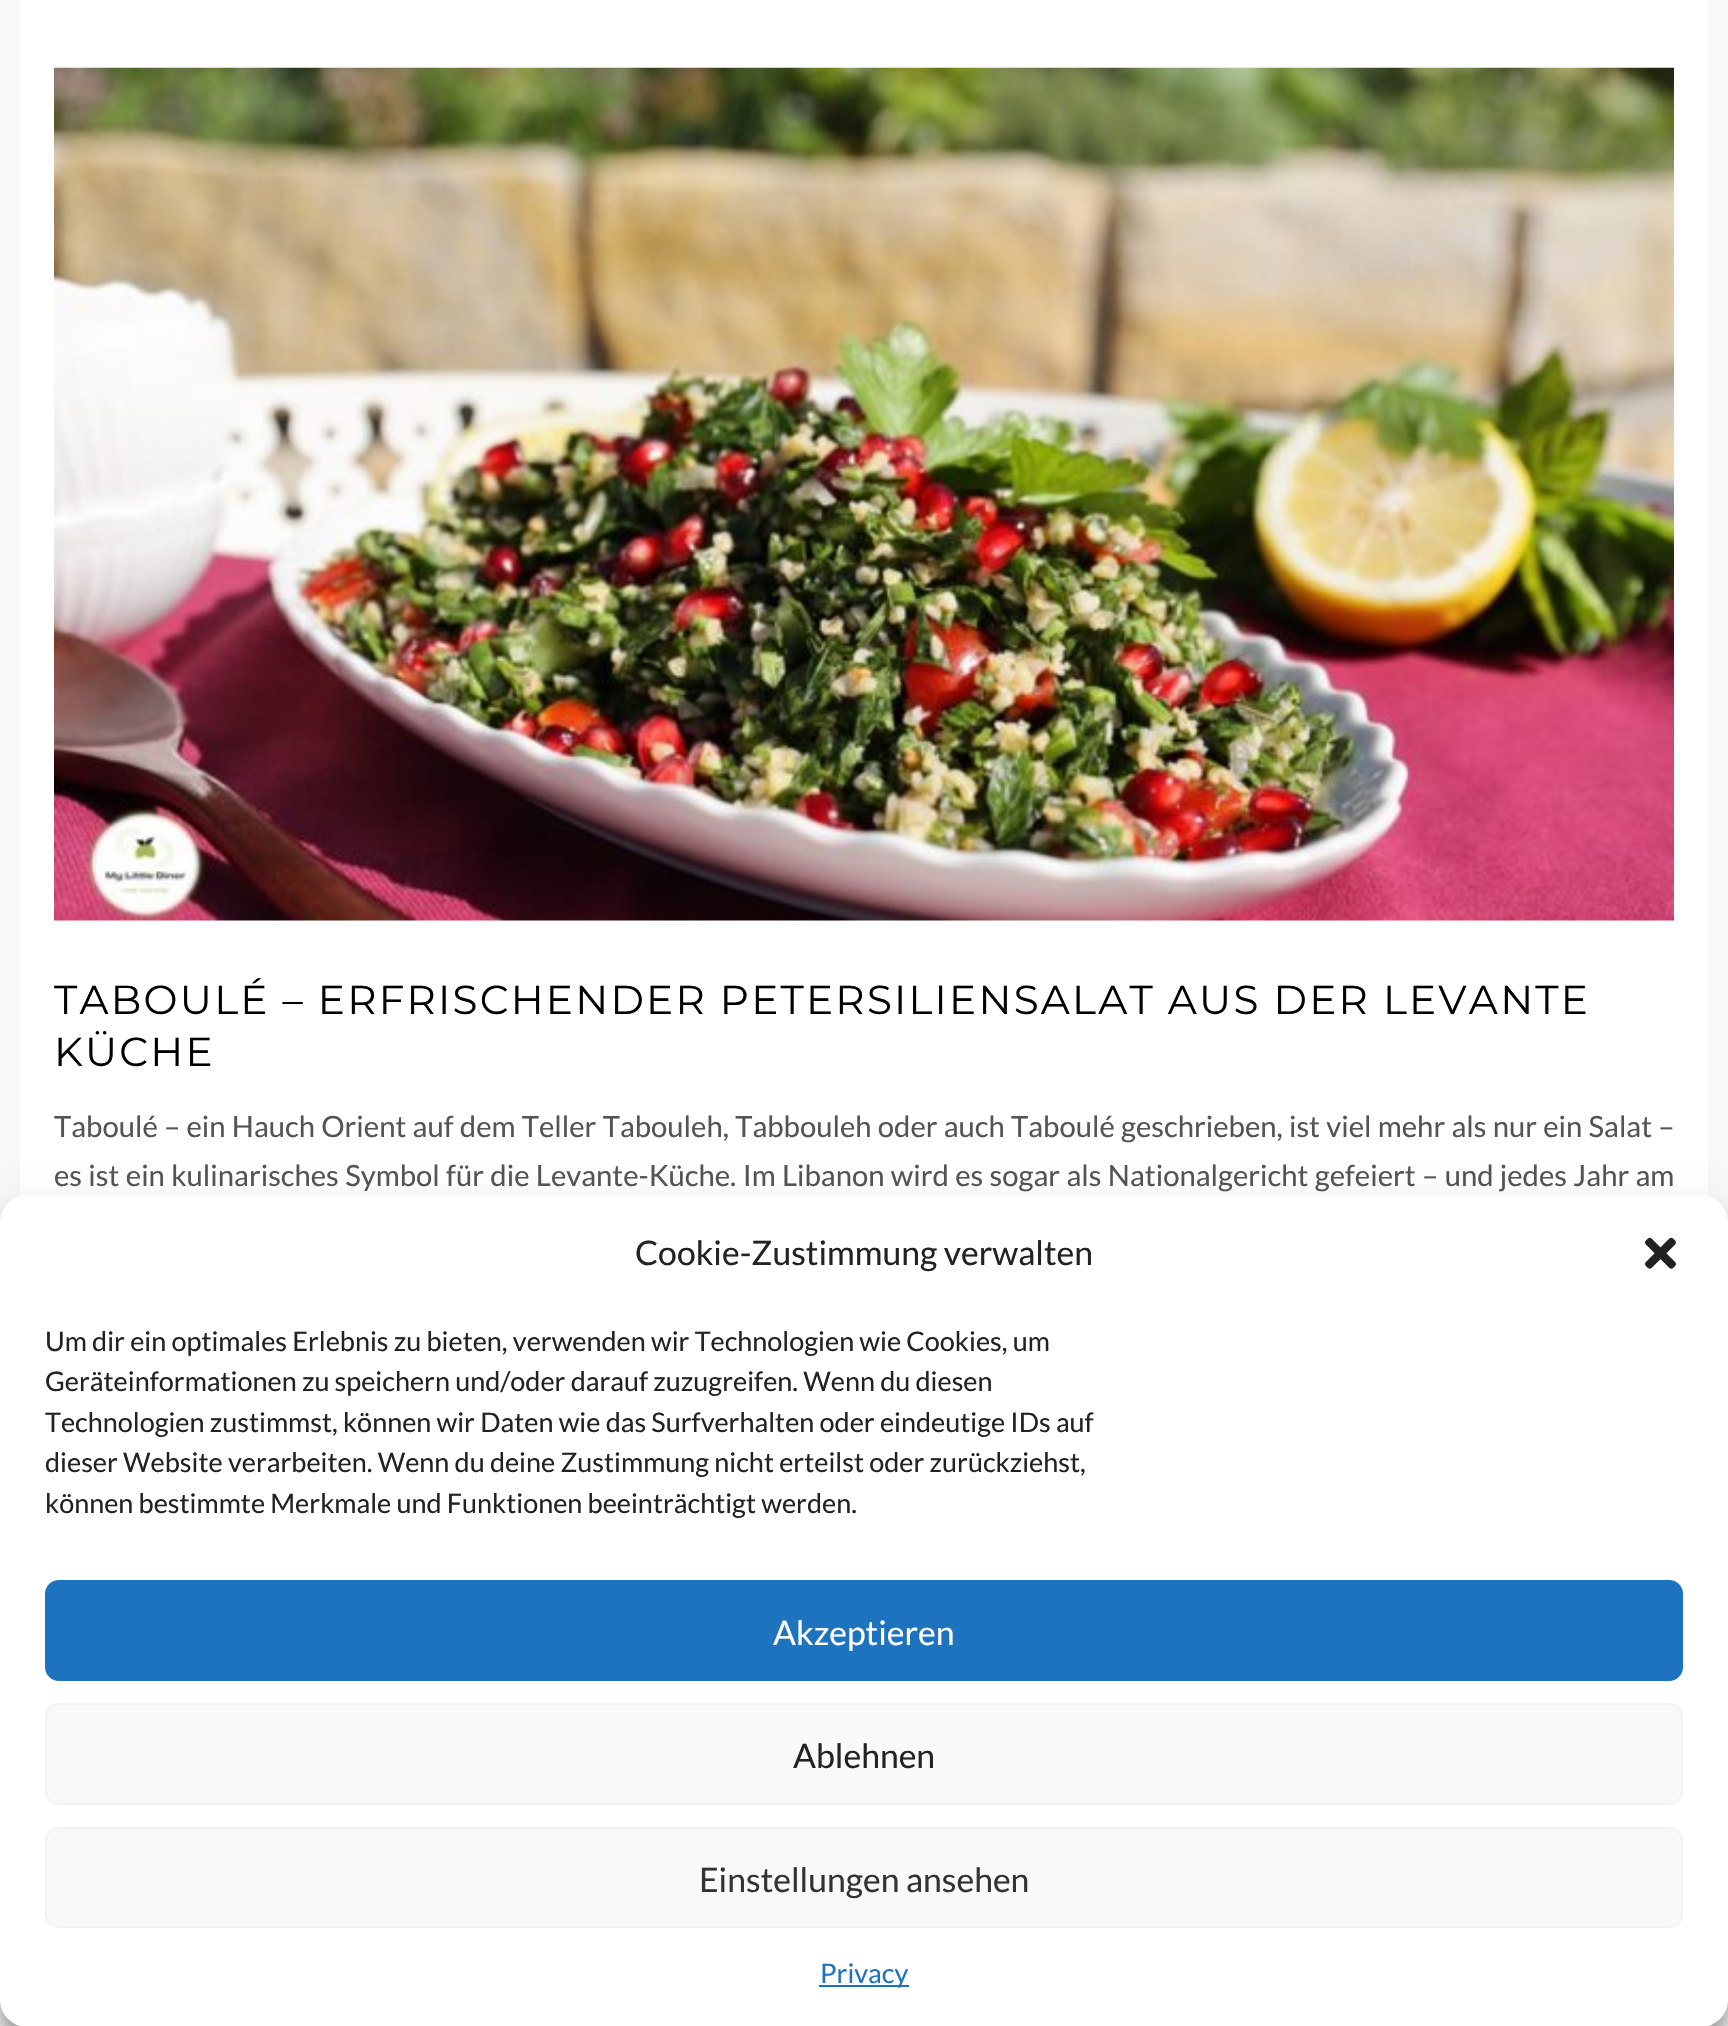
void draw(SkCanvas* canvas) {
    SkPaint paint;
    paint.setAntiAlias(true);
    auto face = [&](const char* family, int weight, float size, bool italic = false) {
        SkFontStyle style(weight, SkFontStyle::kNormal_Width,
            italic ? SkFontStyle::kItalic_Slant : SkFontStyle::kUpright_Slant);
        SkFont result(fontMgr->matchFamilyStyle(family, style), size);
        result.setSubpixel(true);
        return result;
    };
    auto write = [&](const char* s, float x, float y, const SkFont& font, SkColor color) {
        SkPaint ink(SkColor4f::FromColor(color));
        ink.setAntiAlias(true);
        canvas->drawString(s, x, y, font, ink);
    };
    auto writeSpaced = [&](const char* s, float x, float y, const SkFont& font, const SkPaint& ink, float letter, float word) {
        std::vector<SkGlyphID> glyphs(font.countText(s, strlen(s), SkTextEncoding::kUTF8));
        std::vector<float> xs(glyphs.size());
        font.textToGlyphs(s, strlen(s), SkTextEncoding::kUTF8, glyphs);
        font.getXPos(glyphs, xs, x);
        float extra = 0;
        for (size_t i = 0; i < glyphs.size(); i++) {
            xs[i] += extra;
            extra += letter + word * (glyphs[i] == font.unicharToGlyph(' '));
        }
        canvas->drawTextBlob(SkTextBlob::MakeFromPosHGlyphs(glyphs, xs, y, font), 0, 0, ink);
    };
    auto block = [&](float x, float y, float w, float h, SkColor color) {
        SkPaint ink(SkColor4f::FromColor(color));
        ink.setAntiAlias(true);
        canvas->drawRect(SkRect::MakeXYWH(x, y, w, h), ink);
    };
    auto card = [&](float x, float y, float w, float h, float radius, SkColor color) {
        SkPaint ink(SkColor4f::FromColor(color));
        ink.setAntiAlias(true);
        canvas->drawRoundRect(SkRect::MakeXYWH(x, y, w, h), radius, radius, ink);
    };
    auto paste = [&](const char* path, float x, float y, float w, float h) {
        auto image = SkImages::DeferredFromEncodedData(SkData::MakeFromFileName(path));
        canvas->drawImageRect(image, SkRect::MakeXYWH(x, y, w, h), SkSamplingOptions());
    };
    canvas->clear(SK_ColorWHITE);
    paint.setColor(SkColorSetARGB(15, 0, 0, 0));
    paint.setMaskFilter(SkMaskFilter::MakeBlur(kNormal_SkBlurStyle, 56));
    canvas->drawRect(SkRect::MakeXYWH(20, -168, 1688, 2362), paint);
    paint.setMaskFilter(nullptr);
    block(20, 0, 1688, 1196, SK_ColorWHITE);
    paste("pic1.png", 54, 67, 1620, 854);
    auto kFont1 = face("Montserrat", 400, 40.5f);
    paint.setColor(SK_ColorBLACK);
    writeSpaced("TABOULÉ – ERFRISCHENDER PETERSILIENSALAT AUS DER LEVANTE", 54, 1014, kFont1, paint, 2.25f, 0);
    writeSpaced("KÜCHE", 54, 1066, kFont1, paint, 2.25f, 0);
    auto kFont2 = face("Lato", 400, 29.25f);
    paint.setColor(SkColorSetRGB(84, 84, 84));
    writeSpaced("Taboulé – ein Hauch Orient auf dem Teller Tabouleh, Tabbouleh oder auch Taboulé geschrieben, ist viel mehr als nur ein Salat –", 54, 1137, kFont2, paint, 0, 0.6f);
    writeSpaced("es ist ein kulinarisches Symbol für die Levante-Küche. Im Libanon wird es sogar als Nationalgericht gefeiert – und jedes Jahr am", 54, 1186, kFont2, paint, 0, 0.7f);
    paint.setColor(SkColorSetARGB(59, 0, 0, 0));
    paint.setMaskFilter(SkMaskFilter::MakeBlur(kNormal_SkBlurStyle, 7));
    canvas->drawRoundRect(SkRect::MakeXYWH(0, 1208, 1728, 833), 27, 27, paint);
    paint.setMaskFilter(nullptr);
    paint.setColor(SkColorSetARGB(48, 0, 0, 0));
    paint.setMaskFilter(SkMaskFilter::MakeBlur(kNormal_SkBlurStyle, 22.5f));
    canvas->drawRoundRect(SkRect::MakeXYWH(0, 1217, 1728, 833), 27, 27, paint);
    paint.setMaskFilter(nullptr);
    card(0, 1195, 1728, 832, 27, SK_ColorWHITE);
    auto kFont3 = face("Lato", 400, 33.75f);
    write("Cookie-Zustimmung verwalten", 635, 1265, kFont3, SkColorSetRGB(34, 34, 34));
    paste("pic2.png", 1645, 1237, 31, 32);
    auto kFont4 = face("Lato", 400, 27);
    write("Um dir ein optimales Erlebnis zu bieten, verwenden wir Technologien wie Cookies, um", 45, 1351, kFont4, SkColorSetRGB(34, 34, 34));
    write("Geräteinformationen zu speichern und/oder darauf zuzugreifen. Wenn du diesen", 45, 1391, kFont4, SkColorSetRGB(34, 34, 34));
    write("Technologien zustimmst, können wir Daten wie das Surfverhalten oder eindeutige IDs auf", 45, 1432, kFont4, SkColorSetRGB(34, 34, 34));
    write("dieser Website verarbeiten. Wenn du deine Zustimmung nicht erteilst oder zurückziehst,", 45, 1472, kFont4, SkColorSetRGB(34, 34, 34));
    write("können bestimmte Merkmale und Funktionen beeinträchtigt werden.", 45, 1513, kFont4, SkColorSetRGB(34, 34, 34));
    paint.setColor(SkColorSetRGB(30, 115, 190));
    canvas->drawRoundRect(SkRect::MakeXYWH(46, 1581, 1636, 99), 13, 13, paint);
    paint.setStyle(SkPaint::kStroke_Style);
    paint.setStrokeWidth(2);
    canvas->drawRoundRect(SkRect::MakeXYWH(46, 1581, 1636, 99), 13, 13, paint);
    write("Akzeptieren", 773, 1645, kFont3, SK_ColorWHITE);
    paint.setStyle(SkPaint::kFill_Style);
    paint.setColor(SkColorSetRGB(249, 249, 249));
    canvas->drawRoundRect(SkRect::MakeXYWH(46, 1704, 1636, 100), 13, 13, paint);
    paint.setStyle(SkPaint::kStroke_Style);
    paint.setColor(SkColorSetRGB(242, 242, 242));
    canvas->drawRoundRect(SkRect::MakeXYWH(46, 1704, 1636, 100), 13, 13, paint);
    write("Ablehnen", 793, 1768, kFont3, SkColorSetRGB(34, 34, 34));
    paint.setStyle(SkPaint::kFill_Style);
    paint.setColor(SkColorSetRGB(249, 249, 249));
    canvas->drawRoundRect(SkRect::MakeXYWH(46, 1828, 1636, 99), 13, 13, paint);
    paint.setStyle(SkPaint::kStroke_Style);
    paint.setColor(SkColorSetRGB(242, 242, 242));
    canvas->drawRoundRect(SkRect::MakeXYWH(46, 1828, 1636, 99), 13, 13, paint);
    write("Einstellungen ansehen", 699, 1892, kFont3, SkColorSetRGB(51, 51, 51));
    block(819, 1985, 90, 2, SkColorSetRGB(30, 115, 190));
    write("Privacy", 820, 1983, kFont4, SkColorSetRGB(30, 115, 190));
}
